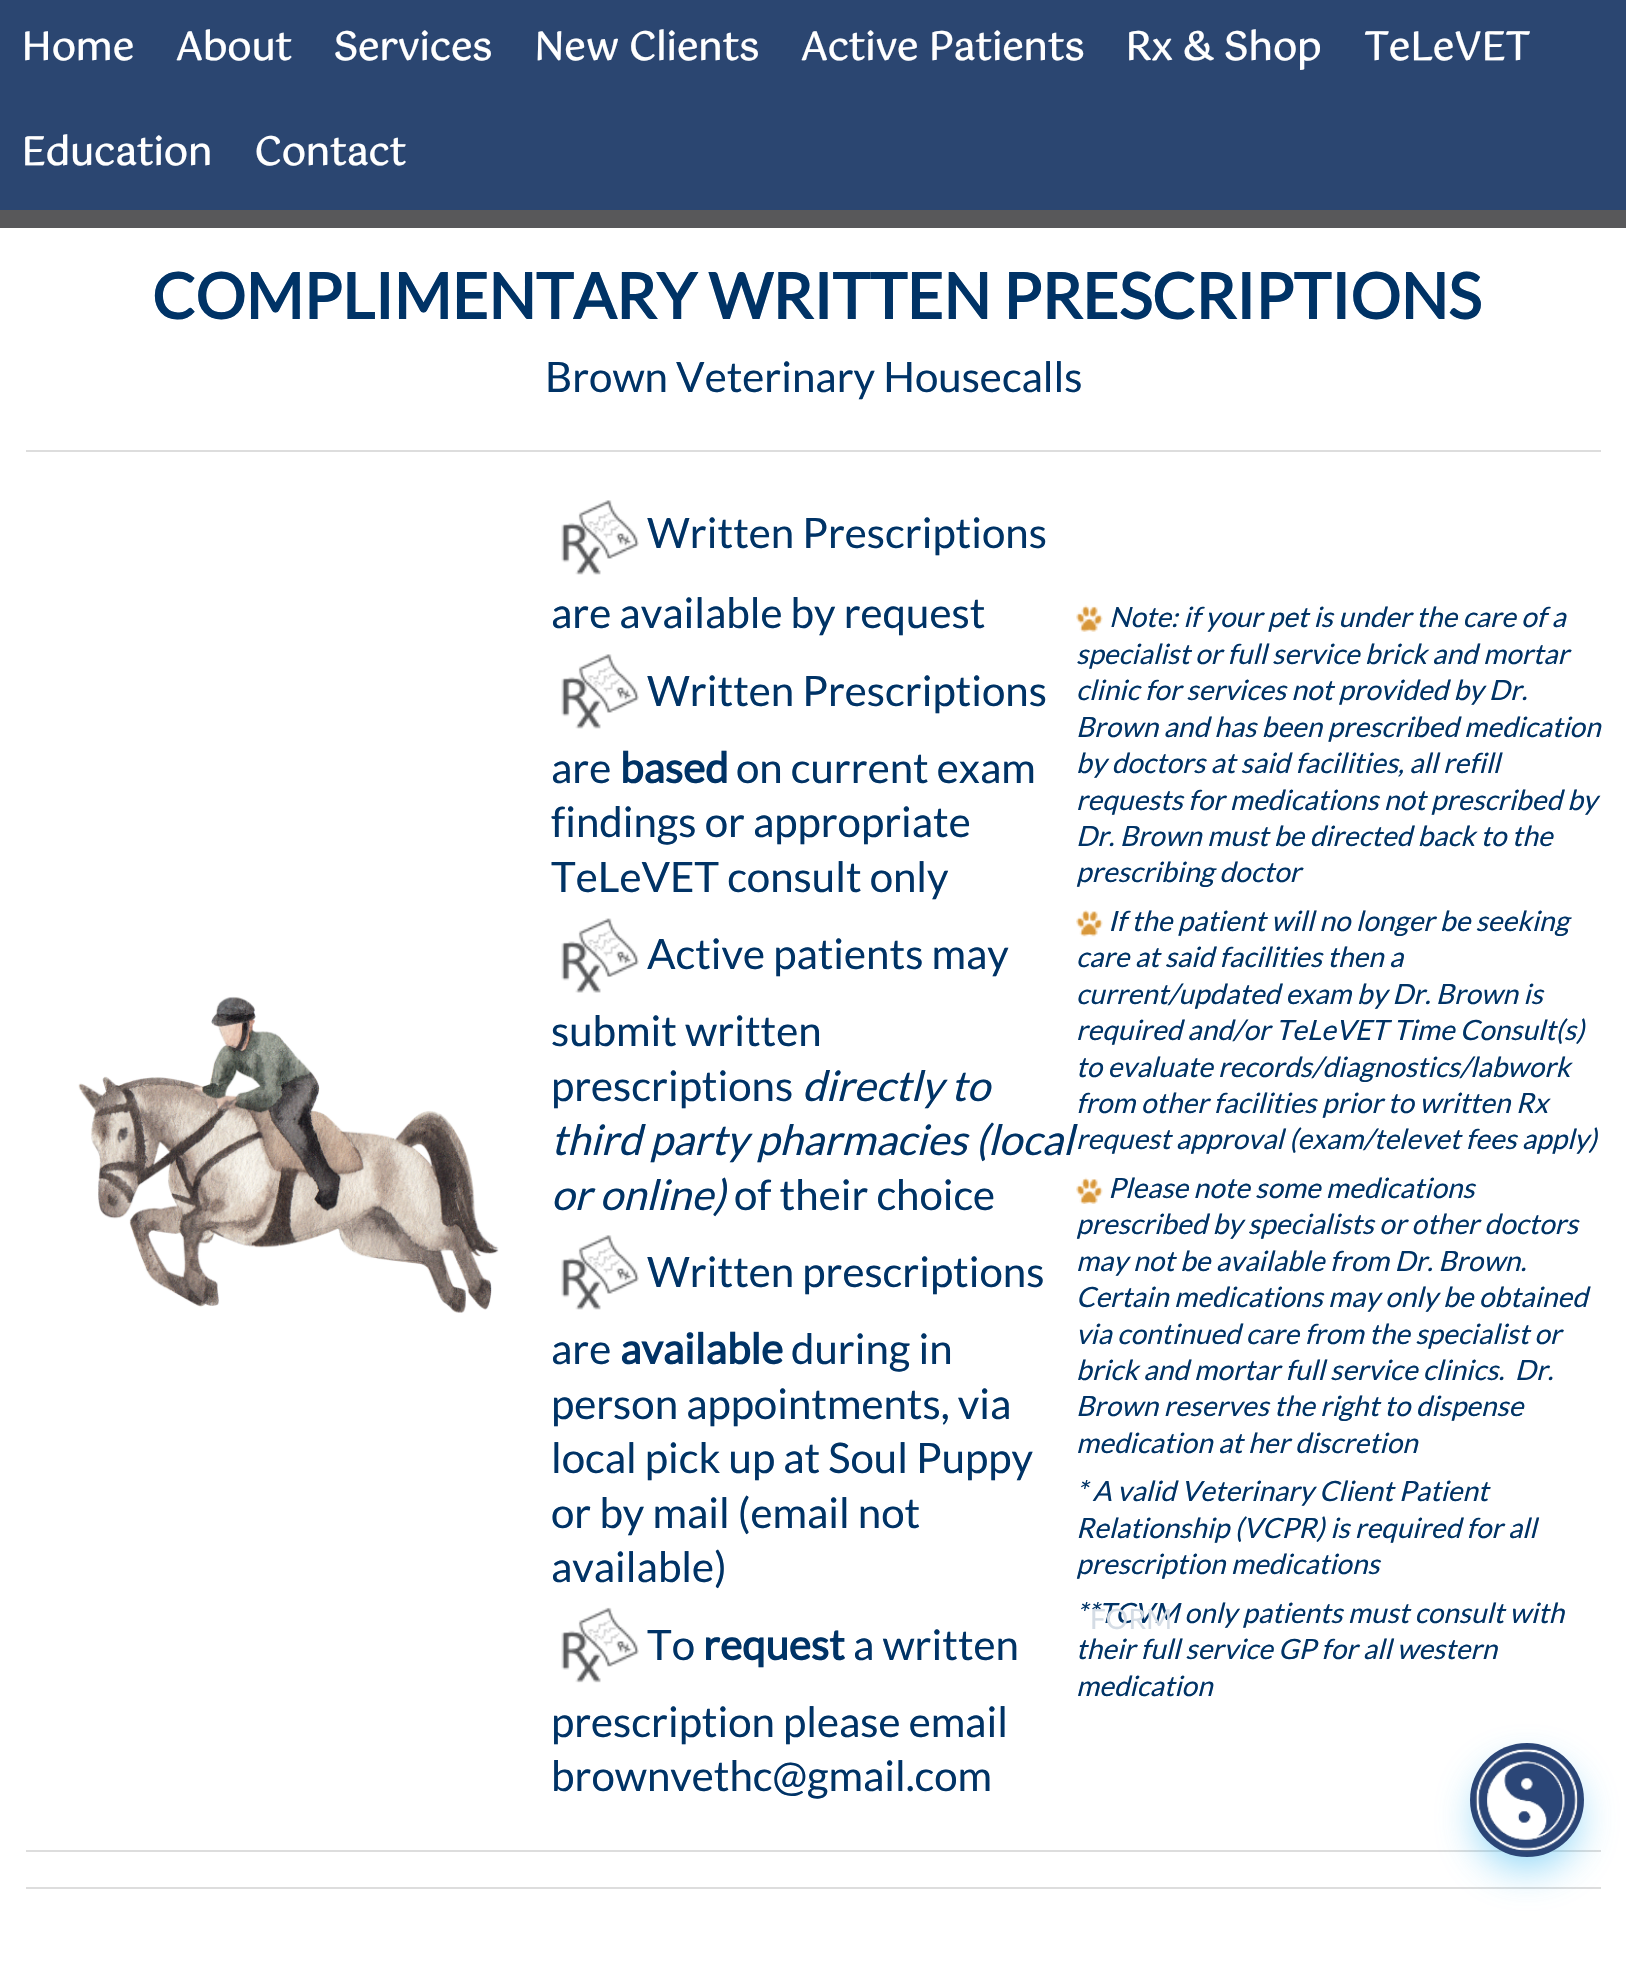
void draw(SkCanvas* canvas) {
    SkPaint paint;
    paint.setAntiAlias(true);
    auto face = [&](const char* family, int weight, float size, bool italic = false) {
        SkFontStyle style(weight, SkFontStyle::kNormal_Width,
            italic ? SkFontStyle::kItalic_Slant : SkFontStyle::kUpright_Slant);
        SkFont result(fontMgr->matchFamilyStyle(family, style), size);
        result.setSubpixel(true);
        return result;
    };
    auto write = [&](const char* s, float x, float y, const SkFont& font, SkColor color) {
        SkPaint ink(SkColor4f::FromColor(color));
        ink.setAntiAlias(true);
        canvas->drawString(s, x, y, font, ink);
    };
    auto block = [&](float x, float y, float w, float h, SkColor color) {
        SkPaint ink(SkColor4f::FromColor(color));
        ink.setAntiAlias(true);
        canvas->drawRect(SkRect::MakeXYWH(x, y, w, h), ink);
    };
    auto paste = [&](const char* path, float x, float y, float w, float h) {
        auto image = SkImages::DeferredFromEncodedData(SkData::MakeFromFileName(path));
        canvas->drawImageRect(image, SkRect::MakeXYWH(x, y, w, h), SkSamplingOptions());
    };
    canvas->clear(SkColorSetRGB(43, 70, 113));
    auto kFont1 = face("Gotu", 700, 38.5f);
    write("Home", 21, 60, kFont1, SK_ColorWHITE);
    write("About", 176, 60, kFont1, SK_ColorWHITE);
    write("Services", 333, 60, kFont1, SK_ColorWHITE);
    write("New Clients", 534, 60, kFont1, SK_ColorWHITE);
    write("Active Patients", 801, 60, kFont1, SK_ColorWHITE);
    write("Rx & Shop", 1125, 60, kFont1, SK_ColorWHITE);
    write("TeLeVET", 1364, 60, kFont1, SK_ColorWHITE);
    write("Education", 21, 165, kFont1, SK_ColorWHITE);
    write("Contact", 254, 165, kFont1, SK_ColorWHITE);
    block(0, 228, 1626, 1741, SK_ColorWHITE);
    block(0, 210, 1626, 18, SkColorSetRGB(88, 88, 90));
    auto kFont2 = face("Lato", 700, 63);
    write("COMPLIMENTARY WRITTEN PRESCRIPTIONS", 152, 319, kFont2, SkColorSetRGB(0, 51, 102));
    auto kFont3 = face("Lato", 400, 42);
    write("Brown Veterinary Housecalls", 545, 392, kFont3, SkColorSetRGB(0, 51, 102));
    block(26, 450, 1575, 2, SkColorSetRGB(221, 221, 221));
    paste("pic1.png", 78, 996, 421, 317);
    paste("pic2.png", 561, 500, 78, 75);
    write("Written Prescriptions", 647, 548, kFont3, SkColorSetRGB(0, 51, 102));
    write("are available by request", 551, 628, kFont3, SkColorSetRGB(0, 51, 102));
    paste("pic2.png", 561, 654, 78, 75);
    write("Written Prescriptions", 647, 706, kFont3, SkColorSetRGB(0, 51, 102));
    write("are", 551, 783, kFont3, SkColorSetRGB(0, 51, 102));
    auto kFont4 = face("Lato", 700, 42);
    write("based", 620, 783, kFont4, SkColorSetRGB(0, 51, 102));
    write("on current exam", 736, 783, kFont3, SkColorSetRGB(0, 51, 102));
    write("findings or appropriate", 551, 837, kFont3, SkColorSetRGB(0, 51, 102));
    write("TeLeVET consult only", 551, 892, kFont3, SkColorSetRGB(0, 51, 102));
    paste("pic3.png", 561, 918, 78, 75);
    write("Active patients may", 647, 969, kFont3, SkColorSetRGB(0, 51, 102));
    write("submit written", 551, 1046, kFont3, SkColorSetRGB(0, 51, 102));
    write("prescriptions", 551, 1101, kFont3, SkColorSetRGB(0, 51, 102));
    auto kFont5 = face("Lato", 400, 42, true);
    write("directly to", 802, 1101, kFont5, SkColorSetRGB(0, 51, 102));
    write("third party pharmacies (local", 551, 1155, kFont5, SkColorSetRGB(0, 51, 102));
    write("or online)", 551, 1210, kFont5, SkColorSetRGB(0, 51, 102));
    write("of their choice", 734, 1210, kFont3, SkColorSetRGB(0, 51, 102));
    paste("pic2.png", 561, 1235, 78, 75);
    write("Written prescriptions", 647, 1287, kFont3, SkColorSetRGB(0, 51, 102));
    write("are", 551, 1364, kFont3, SkColorSetRGB(0, 51, 102));
    write("available", 620, 1364, kFont4, SkColorSetRGB(0, 51, 102));
    write("during in", 791, 1364, kFont3, SkColorSetRGB(0, 51, 102));
    write("person appointments, via", 551, 1419, kFont3, SkColorSetRGB(0, 51, 102));
    write("local pick up at Soul Puppy", 551, 1473, kFont3, SkColorSetRGB(0, 51, 102));
    write("or by mail (email not", 551, 1528, kFont3, SkColorSetRGB(0, 51, 102));
    write("available)", 551, 1582, kFont3, SkColorSetRGB(0, 51, 102));
    paste("pic4.png", 561, 1607, 78, 76);
    write("To", 647, 1660, kFont3, SkColorSetRGB(0, 51, 102));
    write("request", 703, 1660, kFont4, SkColorSetRGB(0, 51, 102));
    write("a written", 853, 1660, kFont3, SkColorSetRGB(0, 51, 102));
    write("prescription please email", 551, 1737, kFont3, SkColorSetRGB(0, 51, 102));
    write("brownvethc@gmail.com", 551, 1791, kFont3, SkColorSetRGB(0, 51, 102));
    paste("pic5.png", 1076, 605, 27, 27);
    auto kFont6 = face("Lato", 400, 28, true);
    write("Note: if your pet is under the care of a", 1109, 627, kFont6, SkColorSetRGB(0, 51, 102));
    write("specialist or full service brick and mortar", 1076, 664, kFont6, SkColorSetRGB(0, 51, 102));
    write("clinic for services not provided by Dr.", 1076, 700, kFont6, SkColorSetRGB(0, 51, 102));
    write("Brown and has been prescribed medication", 1076, 737, kFont6, SkColorSetRGB(0, 51, 102));
    write("by doctors at said facilities, all refill", 1076, 773, kFont6, SkColorSetRGB(0, 51, 102));
    write("requests for medications not prescribed by", 1076, 810, kFont6, SkColorSetRGB(0, 51, 102));
    write("Dr. Brown must be directed back to the", 1076, 846, kFont6, SkColorSetRGB(0, 51, 102));
    write("prescribing doctor", 1076, 882, kFont6, SkColorSetRGB(0, 51, 102));
    paste("pic6.png", 1076, 910, 27, 27);
    write("If the patient will no longer be seeking", 1108, 931, kFont6, SkColorSetRGB(0, 51, 102));
    write("care at said facilities then a", 1076, 967, kFont6, SkColorSetRGB(0, 51, 102));
    write("current/updated exam by Dr. Brown is", 1076, 1004, kFont6, SkColorSetRGB(0, 51, 102));
    write("required and/or TeLeVET Time Consult(s)", 1076, 1040, kFont6, SkColorSetRGB(0, 51, 102));
    write("to evaluate records/diagnostics/labwork", 1076, 1077, kFont6, SkColorSetRGB(0, 51, 102));
    write("from other facilities prior to written Rx", 1076, 1113, kFont6, SkColorSetRGB(0, 51, 102));
    write("request approval (exam/televet fees apply)", 1076, 1149, kFont6, SkColorSetRGB(0, 51, 102));
    paste("pic7.png", 1076, 1177, 27, 27);
    write("Please note some medications", 1108, 1198, kFont6, SkColorSetRGB(0, 51, 102));
    write("prescribed by specialists or other doctors", 1076, 1234, kFont6, SkColorSetRGB(0, 51, 102));
    write("may not be available from Dr. Brown.", 1076, 1271, kFont6, SkColorSetRGB(0, 51, 102));
    write("Certain medications may only be obtained", 1076, 1307, kFont6, SkColorSetRGB(0, 51, 102));
    write("via continued care from the specialist or", 1076, 1344, kFont6, SkColorSetRGB(0, 51, 102));
    write("brick and mortar full service clinics.  Dr.", 1076, 1380, kFont6, SkColorSetRGB(0, 51, 102));
    write("Brown reserves the right to dispense", 1076, 1416, kFont6, SkColorSetRGB(0, 51, 102));
    write("medication at her discretion", 1076, 1453, kFont6, SkColorSetRGB(0, 51, 102));
    write("* A valid Veterinary Client Patient", 1076, 1501, kFont6, SkColorSetRGB(0, 51, 102));
    write("Relationship (VCPR) is required for all", 1076, 1538, kFont6, SkColorSetRGB(0, 51, 102));
    write("prescription medications", 1076, 1574, kFont6, SkColorSetRGB(0, 51, 102));
    write("**TCVM only patients must consult with", 1076, 1623, kFont6, SkColorSetRGB(0, 51, 102));
    write("their full service GP for all western", 1076, 1659, kFont6, SkColorSetRGB(0, 51, 102));
    write("medication", 1076, 1696, kFont6, SkColorSetRGB(0, 51, 102));
    block(26, 1850, 1575, 2, SkColorSetRGB(221, 221, 221));
    block(26, 1887, 1575, 2, SkColorSetRGB(221, 221, 221));
    auto kFont7 = face("Lato", 400, 28);
    write("FORM", 1090, 1629, kFont7, SkColorSetRGB(212, 220, 229));
    paint.setColor(SkColorSetARGB(153, 44, 179, 240));
    paint.setMaskFilter(SkMaskFilter::MakeBlur(kNormal_SkBlurStyle, 22));
    canvas->drawRoundRect(SkRect::MakeXYWH(1479, 1769, 96, 97), 48, 48, paint);
    paint.setMaskFilter(nullptr);
    paint.setColor(SkColorSetRGB(43, 70, 119));
    canvas->drawCircle(1527, 1800, 57, paint);
    paste("pic8.png", 1475, 1748, 104, 104);
}
